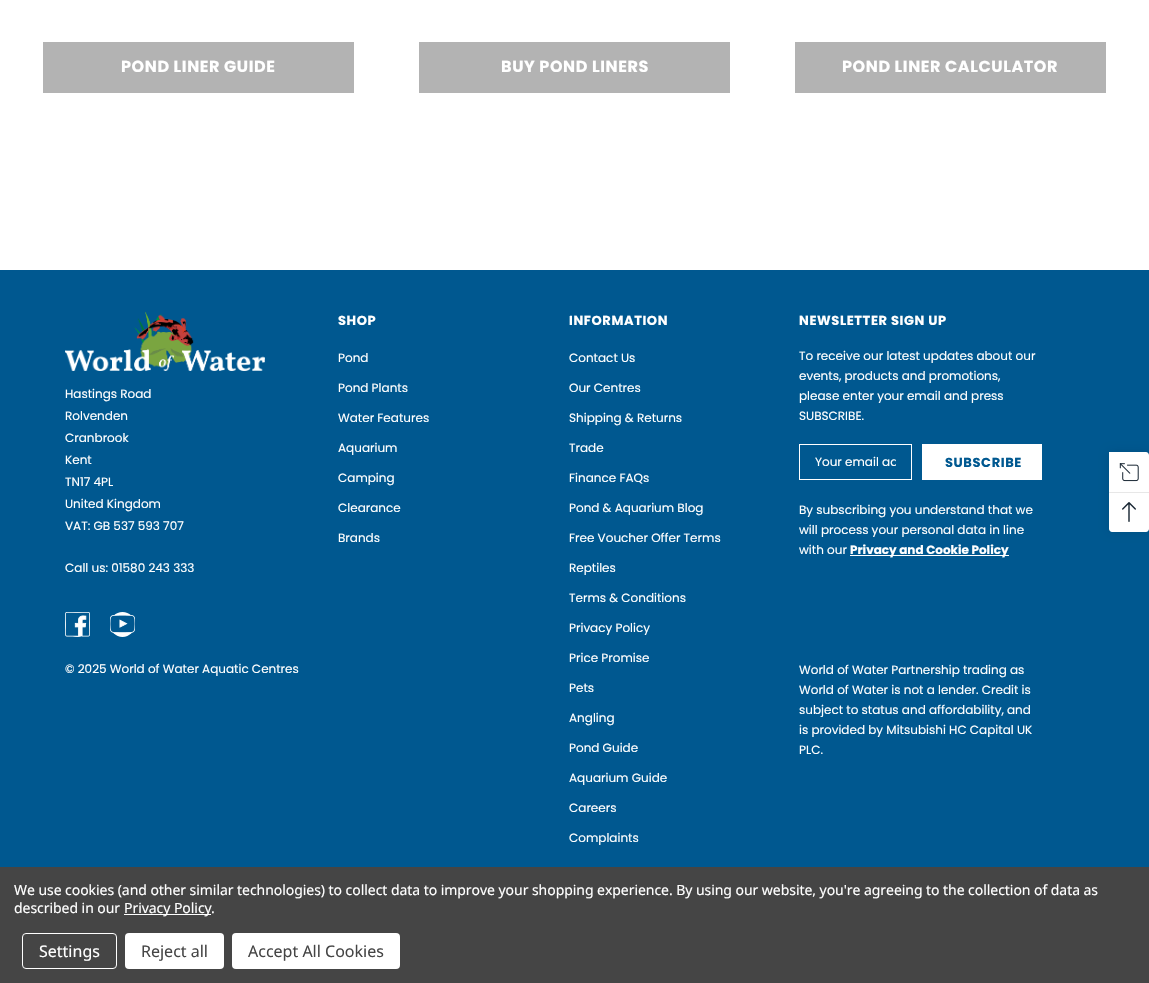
void draw(SkCanvas* canvas) {
    SkPaint paint;
    paint.setAntiAlias(true);
    auto face = [&](const char* family, int weight, float size, bool italic = false) {
        SkFontStyle style(weight, SkFontStyle::kNormal_Width,
            italic ? SkFontStyle::kItalic_Slant : SkFontStyle::kUpright_Slant);
        SkFont result(fontMgr->matchFamilyStyle(family, style), size);
        result.setSubpixel(true);
        return result;
    };
    auto write = [&](const char* s, float x, float y, const SkFont& font, SkColor color) {
        SkPaint ink(SkColor4f::FromColor(color));
        ink.setAntiAlias(true);
        canvas->drawString(s, x, y, font, ink);
    };
    auto writeSpaced = [&](const char* s, float x, float y, const SkFont& font, const SkPaint& ink, float letter, float word) {
        std::vector<SkGlyphID> glyphs(font.countText(s, strlen(s), SkTextEncoding::kUTF8));
        std::vector<float> xs(glyphs.size());
        font.textToGlyphs(s, strlen(s), SkTextEncoding::kUTF8, glyphs);
        font.getXPos(glyphs, xs, x);
        float extra = 0;
        for (size_t i = 0; i < glyphs.size(); i++) {
            xs[i] += extra;
            extra += letter + word * (glyphs[i] == font.unicharToGlyph(' '));
        }
        canvas->drawTextBlob(SkTextBlob::MakeFromPosHGlyphs(glyphs, xs, y, font), 0, 0, ink);
    };
    auto block = [&](float x, float y, float w, float h, SkColor color) {
        SkPaint ink(SkColor4f::FromColor(color));
        ink.setAntiAlias(true);
        canvas->drawRect(SkRect::MakeXYWH(x, y, w, h), ink);
    };
    auto card = [&](float x, float y, float w, float h, float radius, SkColor color) {
        SkPaint ink(SkColor4f::FromColor(color));
        ink.setAntiAlias(true);
        canvas->drawRoundRect(SkRect::MakeXYWH(x, y, w, h), radius, radius, ink);
    };
    auto paste = [&](const char* path, float x, float y, float w, float h) {
        auto image = SkImages::DeferredFromEncodedData(SkData::MakeFromFileName(path));
        canvas->drawImageRect(image, SkRect::MakeXYWH(x, y, w, h), SkSamplingOptions());
    };
    canvas->clear(SK_ColorWHITE);
    block(43, 42, 311, 51, SkColorSetRGB(179, 179, 179));
    auto kFont1 = face("Poppins", 700, 16);
    paint.setColor(SK_ColorWHITE);
    writeSpaced("POND LINER GUIDE", 121, 72, kFont1, paint, 0.6f, 0);
    block(419, 42, 311, 51, SkColorSetRGB(179, 179, 179));
    writeSpaced("BUY POND LINERS", 501, 72, kFont1, paint, 0.6f, 0);
    block(795, 42, 311, 51, SkColorSetRGB(179, 179, 179));
    writeSpaced("POND LINER CALCULATOR", 842, 72, kFont1, paint, 0.6f, 0);
    block(0, 270, 1149, 597, SkColorSetRGB(0, 88, 144));
    paste("pic1.png", 65, 312, 200, 59);
    auto kFont2 = face("Poppins", 400, 12);
    write("Hastings Road", 65, 398, kFont2, SK_ColorWHITE);
    write("Rolvenden", 65, 420, kFont2, SK_ColorWHITE);
    write("Cranbrook", 65, 442, kFont2, SK_ColorWHITE);
    write("Kent", 65, 464, kFont2, SK_ColorWHITE);
    write("TN17 4PL", 65, 486, kFont2, SK_ColorWHITE);
    write("United Kingdom", 65, 508, kFont2, SK_ColorWHITE);
    write("VAT: GB 537 593 707", 65, 530, kFont2, SK_ColorWHITE);
    write("Call us: 01580 243 333", 65, 572, kFont2, SK_ColorWHITE);
    canvas->drawCircle(77.5f, 624.5f, 12.5f, paint);
    paste("pic2.png", 65, 612, 25, 25);
    canvas->drawCircle(122.5f, 624.5f, 12.5f, paint);
    paste("pic3.png", 110, 614, 25, 19);
    write("© 2025 World of Water Aquatic Centres", 65, 673, kFont2, SK_ColorWHITE);
    auto kFont3 = face("Poppins", 700, 13);
    writeSpaced("SHOP", 338, 325, kFont3, paint, 0.6f, 0);
    write("Pond", 338, 362, kFont2, SK_ColorWHITE);
    write("Pond Plants", 338, 392, kFont2, SK_ColorWHITE);
    write("Water Features", 338, 422, kFont2, SK_ColorWHITE);
    write("Aquarium", 338, 452, kFont2, SK_ColorWHITE);
    write("Camping", 338, 482, kFont2, SK_ColorWHITE);
    write("Clearance", 338, 512, kFont2, SK_ColorWHITE);
    write("Brands", 338, 542, kFont2, SK_ColorWHITE);
    writeSpaced("INFORMATION", 569, 325, kFont3, paint, 0.6f, 0);
    write("Contact Us", 569, 362, kFont2, SK_ColorWHITE);
    write("Our Centres", 569, 392, kFont2, SK_ColorWHITE);
    write("Shipping & Returns", 569, 422, kFont2, SK_ColorWHITE);
    write("Trade", 569, 452, kFont2, SK_ColorWHITE);
    write("Finance FAQs", 569, 482, kFont2, SK_ColorWHITE);
    write("Pond & Aquarium Blog", 569, 512, kFont2, SK_ColorWHITE);
    write("Free Voucher Offer Terms", 569, 542, kFont2, SK_ColorWHITE);
    write("Reptiles", 569, 572, kFont2, SK_ColorWHITE);
    write("Terms & Conditions", 569, 602, kFont2, SK_ColorWHITE);
    write("Privacy Policy", 569, 632, kFont2, SK_ColorWHITE);
    write("Price Promise", 569, 662, kFont2, SK_ColorWHITE);
    write("Pets", 569, 692, kFont2, SK_ColorWHITE);
    write("Angling", 569, 722, kFont2, SK_ColorWHITE);
    write("Pond Guide", 569, 752, kFont2, SK_ColorWHITE);
    write("Aquarium Guide", 569, 782, kFont2, SK_ColorWHITE);
    write("Careers", 569, 812, kFont2, SK_ColorWHITE);
    write("Complaints", 569, 842, kFont2, SK_ColorWHITE);
    writeSpaced("NEWSLETTER SIGN UP", 799, 325, kFont3, paint, 0.6f, 0);
    write("To receive our latest updates about our", 799, 360, kFont2, SK_ColorWHITE);
    write("events, products and promotions,", 799, 380, kFont2, SK_ColorWHITE);
    write("please enter your email and press", 799, 400, kFont2, SK_ColorWHITE);
    write("SUBSCRIBE.", 799, 420, kFont2, SK_ColorWHITE);
    paint.setStyle(SkPaint::kStroke_Style);
    paint.setStrokeWidth(1);
    canvas->drawRect(SkRect::MakeXYWH(799.5f, 444.5f, 112, 35), paint);
    canvas->save();
    canvas->clipRect(SkRect::MakeXYWH(815, 453, 81, 18));
    write("Your email ad", 815, 466, kFont2, SK_ColorWHITE);
    canvas->restore();
    block(922, 444, 120, 36, SK_ColorWHITE);
    paint.setStyle(SkPaint::kFill_Style);
    paint.setColor(SkColorSetRGB(0, 88, 144));
    writeSpaced("SUBSCRIBE", 945, 467, kFont3, paint, 0.6f, 0);
    write("By subscribing you understand that we", 799, 514, kFont2, SK_ColorWHITE);
    write("will process your personal data in line", 799, 534, kFont2, SK_ColorWHITE);
    write("with our", 799, 554, kFont2, SK_ColorWHITE);
    block(850, 555, 159, 1, SK_ColorWHITE);
    auto kFont4 = face("Poppins", 700, 12);
    write("Privacy and Cookie Policy", 850, 554, kFont4, SK_ColorWHITE);
    write("World of Water Partnership trading as", 799, 674, kFont2, SK_ColorWHITE);
    write("World of Water is not a lender. Credit is", 799, 694, kFont2, SK_ColorWHITE);
    write("subject to status and affordability, and", 799, 714, kFont2, SK_ColorWHITE);
    write("is provided by Mitsubishi HC Capital UK", 799, 734, kFont2, SK_ColorWHITE);
    write("PLC.", 799, 754, kFont2, SK_ColorWHITE);
    paint.setColor(SkColorSetARGB(26, 0, 0, 0));
    paint.setMaskFilter(SkMaskFilter::MakeBlur(kNormal_SkBlurStyle, 5));
    canvas->drawRoundRect(SkRect::MakeXYWH(1109, 452, 40, 80), 3, 3, paint);
    paint.setMaskFilter(nullptr);
    paint.setColor(SK_ColorWHITE);
    canvas->drawPath(SkPathBuilder().moveTo(1109, 452).lineTo(1146, 452).cubicTo(1147.5f, 452, 1149, 453.5f, 1149, 455).lineTo(1149, 529).cubicTo(1149, 530.5f, 1147.5f, 532, 1146, 532).lineTo(1112, 532).cubicTo(1110.5f, 532, 1109, 530.5f, 1109, 529).close().detach(), paint);
    paste("pic4.png", 1119, 463, 20, 19);
    block(1109, 492, 40, 1, SkColorSetRGB(231, 231, 231));
    paste("pic5.png", 1122, 502, 14, 20);
    block(0, 867, 1149, 116, SkColorSetRGB(69, 69, 69));
    auto kFont5 = face("Noto Sans", 400, 14);
    writeSpaced("We use cookies (and other similar technologies) to collect data to improve your shopping experience. By using our website, you're agreeing to the collection of data as", 14, 895, kFont5, paint, -0.05f, 0);
    writeSpaced("described in our", 14, 913, kFont5, paint, -0.05f, 0);
    block(124, 914, 87, 1, SK_ColorWHITE);
    writeSpaced("Privacy Policy", 124, 913, kFont5, paint, -0.05f, 0);
    writeSpaced(".", 211, 913, kFont5, paint, -0.05f, 0);
    paint.setStyle(SkPaint::kStroke_Style);
    canvas->drawRoundRect(SkRect::MakeXYWH(22.5f, 933.5f, 94, 35), 3.5f, 3.5f, paint);
    auto kFont6 = face("Noto Sans", 400, 16);
    write("Settings", 39, 957, kFont6, SK_ColorWHITE);
    card(125, 933, 99, 36, 4, SK_ColorWHITE);
    write("Reject all", 141, 957, kFont6, SkColorSetRGB(69, 69, 69));
    card(232, 933, 168, 36, 4, SK_ColorWHITE);
    write("Accept All Cookies", 248, 957, kFont6, SkColorSetRGB(69, 69, 69));
}
